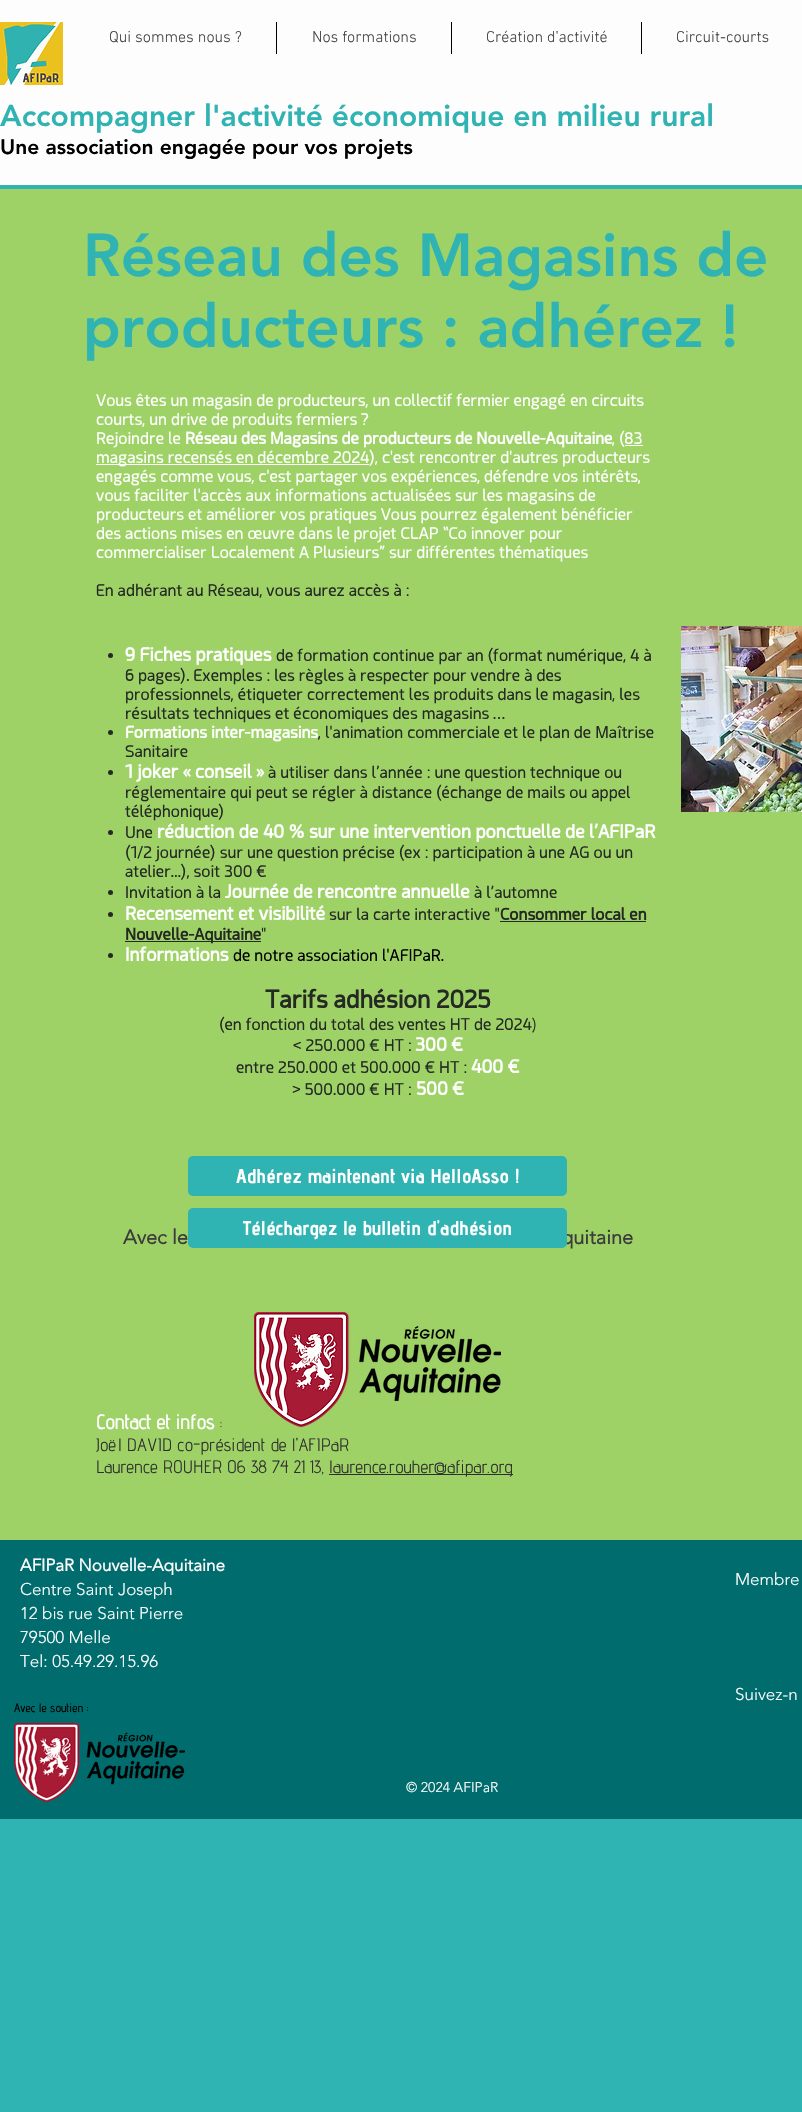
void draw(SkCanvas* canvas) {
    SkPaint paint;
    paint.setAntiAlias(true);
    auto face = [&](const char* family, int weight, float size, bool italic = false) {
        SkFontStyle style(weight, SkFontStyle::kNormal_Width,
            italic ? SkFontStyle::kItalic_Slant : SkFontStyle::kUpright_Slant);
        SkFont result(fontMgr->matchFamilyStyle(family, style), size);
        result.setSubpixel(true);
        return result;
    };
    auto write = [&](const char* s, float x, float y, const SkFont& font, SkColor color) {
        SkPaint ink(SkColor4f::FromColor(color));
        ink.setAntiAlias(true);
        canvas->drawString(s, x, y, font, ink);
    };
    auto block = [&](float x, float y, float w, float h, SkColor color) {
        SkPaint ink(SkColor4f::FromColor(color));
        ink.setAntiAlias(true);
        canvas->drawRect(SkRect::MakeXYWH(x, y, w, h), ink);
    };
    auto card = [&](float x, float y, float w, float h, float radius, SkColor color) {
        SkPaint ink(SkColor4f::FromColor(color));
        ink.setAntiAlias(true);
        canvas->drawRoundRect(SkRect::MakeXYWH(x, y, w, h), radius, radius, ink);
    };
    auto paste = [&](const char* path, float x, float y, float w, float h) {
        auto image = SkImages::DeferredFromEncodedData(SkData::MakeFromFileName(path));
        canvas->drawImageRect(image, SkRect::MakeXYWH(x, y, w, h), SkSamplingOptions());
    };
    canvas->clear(SkColorSetRGB(48, 180, 179));
    block(0, 0, 802, 185, SkColorSetRGB(253, 253, 253));
    paste("pic1.png", 0, 22, 63, 63);
    auto kFont1 = face("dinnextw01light", 300, 16);
    write("Qui sommes nous ?", 109, 42, kFont1, SkColorSetRGB(68, 68, 68));
    block(276, 22, 1, 32, SK_ColorBLACK);
    write("Nos formations", 312, 42, kFont1, SkColorSetRGB(68, 68, 68));
    block(451, 22, 1, 32, SK_ColorBLACK);
    write("Création d'activité", 486, 42, kFont1, SkColorSetRGB(68, 68, 68));
    block(641, 22, 1, 32, SK_ColorBLACK);
    write("Circuit-courts", 676, 42, kFont1, SkColorSetRGB(68, 68, 68));
    auto kFont2 = face("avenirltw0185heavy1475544", 900, 30);
    write("Accompagner l'activité économique en milieu rural", 0, 126, kFont2, SkColorSetRGB(48, 180, 179));
    auto kFont3 = face("avenirltw0185heavy1475544", 900, 21);
    write("Une association engagée pour vos projets", 0, 154, kFont3, SK_ColorBLACK);
    block(0, 189, 802, 1351, SkColorSetRGB(158, 210, 103));
    auto kFont4 = face("avenirltw0185heavy1475544", 900, 60);
    write("Réseau des Magasins de", 83, 276, kFont4, SkColorSetRGB(48, 180, 179));
    write("producteurs : adhérez !", 83, 347, kFont4, SkColorSetRGB(48, 180, 179));
    auto kFont5 = face("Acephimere", 400, 16);
    write("Vous êtes un magasin de producteurs, un collectif fermier engagé en circuits", 96, 406, kFont5, SK_ColorWHITE);
    write("courts, un drive de produits fermiers ?", 96, 425, kFont5, SK_ColorWHITE);
    write("Rejoindre le", 96, 444, kFont5, SK_ColorWHITE);
    auto kFont6 = face("Acephimere", 700, 16);
    write("Réseau des Magasins de producteurs de Nouvelle-Aquitaine", 185, 444, kFont6, SK_ColorWHITE);
    write(", (83", 612, 444, kFont5, SK_ColorWHITE);
    block(625, 445, 18, 1, SK_ColorWHITE);
    block(96, 464, 273, 1, SK_ColorWHITE);
    write("magasins recensés en décembre 2024), c'est rencontrer d'autres producteurs", 96, 463, kFont5, SK_ColorWHITE);
    write("engagés comme vous, c'est partager vos expériences, défendre vos intérêts,", 96, 482, kFont5, SK_ColorWHITE);
    write("vous faciliter l'accès aux informations actualisées sur les magasins de", 96, 501, kFont5, SK_ColorWHITE);
    write("producteurs et améliorer vos pratiques Vous pourrez également bénéficier", 96, 520, kFont5, SK_ColorWHITE);
    write("des actions mises en œuvre dans le projet CLAP “Co innover pour", 96, 539, kFont5, SK_ColorWHITE);
    write("commercialiser Localement A Plusieurs” sur différentes thématiques", 96, 558, kFont5, SK_ColorWHITE);
    write("En adhérant au Réseau, vous aurez accès à :", 96, 596, kFont5, SkColorSetRGB(36, 41, 35));
    paint.setColor(SkColorSetRGB(36, 41, 35));
    canvas->drawCircle(110.5f, 655.5f, 2.5f, paint);
    auto kFont7 = face("Acephimere", 700, 18);
    write("9 Fiches pratiques", 125, 661, kFont7, SK_ColorWHITE);
    write("de formation continue par an (format numérique, 4 à", 276, 661, kFont5, SkColorSetRGB(36, 41, 35));
    write("6 pages). Exemples : les règles à respecter pour vendre à des", 125, 681, kFont5, SkColorSetRGB(36, 41, 35));
    write("professionnels, étiqueter correctement les produits dans le magasin, les", 125, 700, kFont5, SkColorSetRGB(36, 41, 35));
    write("résultats techniques et économiques des magasins …", 125, 719, kFont5, SkColorSetRGB(36, 41, 35));
    canvas->drawCircle(110.5f, 732.5f, 2.5f, paint);
    write("Formations inter-magasins", 125, 738, kFont6, SK_ColorWHITE);
    write(", l'animation commerciale et le plan de Maîtrise", 318, 738, kFont5, SkColorSetRGB(36, 41, 35));
    write("Sanitaire", 125, 757, kFont5, SkColorSetRGB(36, 41, 35));
    canvas->drawCircle(110.5f, 772.5f, 2.5f, paint);
    write("1 joker « conseil »", 125, 778, kFont7, SK_ColorWHITE);
    write("à utiliser dans l’année : une question technique ou", 268, 778, kFont5, SkColorSetRGB(36, 41, 35));
    write("réglementaire qui peut se régler à distance (échange de mails ou appel", 125, 798, kFont5, SkColorSetRGB(36, 41, 35));
    write("téléphonique)", 125, 817, kFont5, SkColorSetRGB(36, 41, 35));
    canvas->drawCircle(110.5f, 832.5f, 2.5f, paint);
    write("Une", 125, 838, kFont5, SkColorSetRGB(36, 41, 35));
    write("réduction de 40 % sur une intervention ponctuelle de l’AFIPaR", 157, 838, kFont7, SK_ColorWHITE);
    write("(1/2 journée) sur une question précise (ex : participation à une AG ou un", 125, 858, kFont5, SkColorSetRGB(36, 41, 35));
    write("atelier...), soit 300 €", 125, 877, kFont5, SkColorSetRGB(36, 41, 35));
    canvas->drawCircle(110.5f, 892.5f, 2.5f, paint);
    write("Invitation à la", 125, 898, kFont5, SkColorSetRGB(36, 41, 35));
    write("Journée de rencontre annuelle", 225, 898, kFont7, SK_ColorWHITE);
    write("à l’automne", 474, 898, kFont5, SkColorSetRGB(36, 41, 35));
    canvas->drawCircle(110.5f, 914.5f, 2.5f, paint);
    write("Recensement et visibilité", 125, 920, kFont7, SK_ColorWHITE);
    write("sur la carte interactive \"", 329, 920, kFont5, SkColorSetRGB(36, 41, 35));
    block(500, 921, 146, 1, SkColorSetRGB(36, 41, 35));
    write("Consommer local en", 500, 920, kFont6, SkColorSetRGB(36, 41, 35));
    block(125, 941, 136, 1, SkColorSetRGB(36, 41, 35));
    write("Nouvelle-Aquitaine", 125, 940, kFont6, SkColorSetRGB(36, 41, 35));
    write("\"", 261, 940, kFont5, SkColorSetRGB(36, 41, 35));
    canvas->drawCircle(110.5f, 955.5f, 2.5f, paint);
    write("Informations", 125, 961, kFont7, SK_ColorWHITE);
    write("de notre association l'AFIPaR.", 233, 961, kFont5, SK_ColorBLACK);
    auto kFont8 = face("Acephimere", 700, 24);
    write("Tarifs adhésion 2025", 265, 1008, kFont8, SkColorSetRGB(36, 41, 35));
    write("(en fonction du total des ventes HT de 2024", 219, 1030, kFont5, SkColorSetRGB(36, 41, 35));
    auto kFont9 = face("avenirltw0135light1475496", 300, 17);
    write(")", 532, 1030, kFont9, SkColorSetRGB(36, 41, 35));
    write("< 250.000 € HT :", 293, 1051, kFont5, SkColorSetRGB(36, 41, 35));
    write("300 €", 415, 1051, kFont7, SK_ColorWHITE);
    write("entre 250.000 et 500.000 € HT :", 236, 1073, kFont5, SkColorSetRGB(36, 41, 35));
    write("400 €", 471, 1073, kFont7, SK_ColorWHITE);
    write("> 500.000 € HT :", 292, 1095, kFont5, SkColorSetRGB(36, 41, 35));
    write("500 €", 416, 1095, kFont7, SK_ColorWHITE);
    auto kFont10 = face("avenirltw0135light1475496", 700, 20);
    write("Avec le", 123, 1244, kFont10, SkColorSetRGB(60, 60, 60));
    write("quitaine", 561, 1244, kFont10, SkColorSetRGB(60, 60, 60));
    auto kFont11 = face("Advent Pro", 700, 20);
    write("Contact et infos", 96, 1429, kFont11, SK_ColorWHITE);
    auto kFont12 = face("Advent Pro", 400, 16);
    write(":", 220, 1429, kFont12, SkColorSetRGB(47, 46, 46));
    auto kFont13 = face("Advent Pro", 400, 18);
    write("Joël DAVID co-président de l'AFIPaR", 96, 1451, kFont13, SkColorSetRGB(47, 46, 46));
    write("Laurence ROUHER 06 38 74 21 13,", 96, 1473, kFont13, SkColorSetRGB(47, 46, 46));
    block(329, 1474, 184, 1, SkColorSetRGB(47, 46, 46));
    write("laurence.rouher@afipar.org", 329, 1473, kFont13, SkColorSetRGB(47, 46, 46));
    paste("pic2.png", 681, 626, 121, 186);
    card(188, 1156, 379, 40, 5, SkColorSetRGB(48, 180, 179));
    auto kFont14 = face("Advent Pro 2", 700, 20);
    write("Adhérez maintenant via HelloAsso !", 236, 1183, kFont14, SK_ColorWHITE);
    card(188, 1208, 379, 40, 5, SkColorSetRGB(48, 180, 179));
    write("Téléchargez le bulletin d'adhésion", 243, 1235, kFont14, SK_ColorWHITE);
    paste("pic3.png", 254, 1312, 247, 115);
    block(0, 1540, 802, 279, SkColorSetRGB(0, 108, 109));
    auto kFont15 = face("avenirltw0135light1475496", 700, 17);
    write("AFIPaR Nouvelle-Aquitaine", 20, 1571, kFont15, SK_ColorWHITE);
    write("Centre Saint Joseph", 20, 1595, kFont9, SK_ColorWHITE);
    write("12 bis rue Saint Pierre", 20, 1619, kFont9, SK_ColorWHITE);
    write("79500 Melle", 20, 1643, kFont9, SK_ColorWHITE);
    write("Tel: 05.49.29.15.96", 20, 1667, kFont9, SK_ColorWHITE);
    write("Membre", 735, 1585, kFont9, SK_ColorWHITE);
    write("Suivez-n", 735, 1700, kFont9, SK_ColorWHITE);
    auto kFont16 = face("Advent Pro", 500, 12);
    write("Avec le soutien :", 14, 1712, kFont16, SK_ColorBLACK);
    paste("pic4.png", 14, 1723, 171, 79);
    auto kFont17 = face("avenirltw0135light1475496", 300, 14);
    write("© 2024 AFIPaR", 406, 1792, kFont17, SK_ColorWHITE);
}
